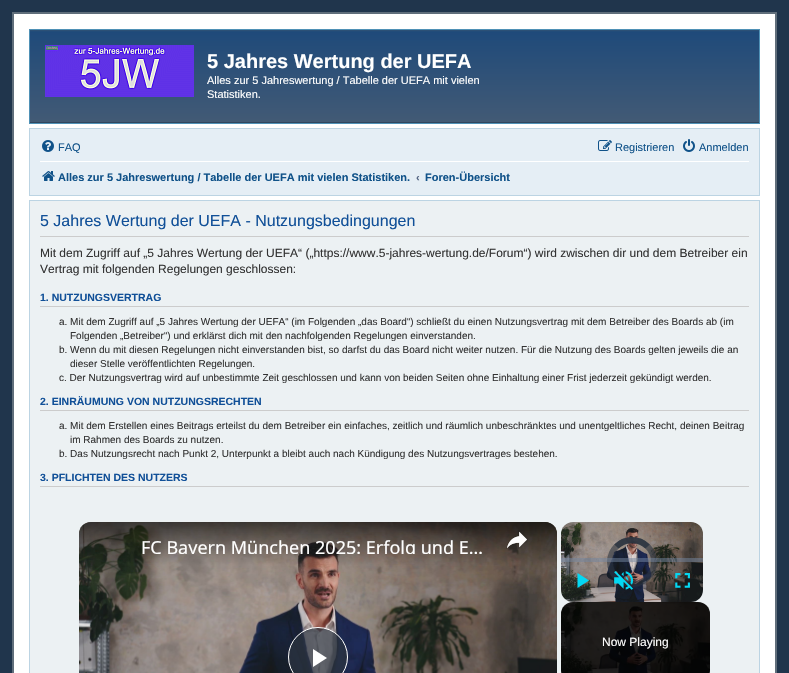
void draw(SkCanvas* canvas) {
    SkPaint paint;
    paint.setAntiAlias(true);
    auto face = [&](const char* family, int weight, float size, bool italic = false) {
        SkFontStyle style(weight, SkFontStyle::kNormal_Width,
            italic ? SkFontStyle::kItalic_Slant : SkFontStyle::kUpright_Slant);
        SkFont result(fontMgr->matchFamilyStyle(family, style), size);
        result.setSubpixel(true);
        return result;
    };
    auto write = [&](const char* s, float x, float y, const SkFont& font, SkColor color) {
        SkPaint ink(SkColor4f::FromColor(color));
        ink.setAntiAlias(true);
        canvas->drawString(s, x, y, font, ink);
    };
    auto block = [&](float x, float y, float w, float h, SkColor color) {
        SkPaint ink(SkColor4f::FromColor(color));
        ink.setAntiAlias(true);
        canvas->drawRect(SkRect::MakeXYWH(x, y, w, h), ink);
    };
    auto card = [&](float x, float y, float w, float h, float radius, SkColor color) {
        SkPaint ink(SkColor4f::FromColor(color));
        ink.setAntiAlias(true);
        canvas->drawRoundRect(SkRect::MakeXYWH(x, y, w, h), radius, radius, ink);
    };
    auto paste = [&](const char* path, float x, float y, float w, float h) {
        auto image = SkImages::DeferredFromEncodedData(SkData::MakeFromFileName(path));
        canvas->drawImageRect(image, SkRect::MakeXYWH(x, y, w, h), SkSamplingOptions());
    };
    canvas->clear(SkColorSetRGB(32, 53, 76));
    paint.setColor(SK_ColorWHITE);
    canvas->drawRect(SkRect::MakeXYWH(13, 13, 763, 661), paint);
    paint.setStyle(SkPaint::kStroke_Style);
    paint.setStrokeWidth(2);
    paint.setColor(SkColorSetRGB(96, 110, 123));
    canvas->drawRect(SkRect::MakeXYWH(13, 13, 763, 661), paint);
    paint.setStyle(SkPaint::kFill_Style);
    {
        const SkColor colors[] = {SkColorSetRGB(49, 82, 117), SkColorSetRGB(31, 74, 122), SkColorSetRGB(66, 90, 117), SkColorSetRGB(28, 46, 67)};
        const float stops[] = {0, 0.02f, 0.99f, 1};
        const SkPoint ends[] = {{395, 30}, {395, 123}};
        paint.setShader(SkGradientShader::MakeLinear(ends, colors, stops, 4, SkTileMode::kClamp));
        paint.setAlpha(255);
    }
    canvas->drawRect(SkRect::MakeXYWH(30, 30, 729, 93), paint);
    paint.setStyle(SkPaint::kStroke_Style);
    paint.setStrokeWidth(1);
    paint.setShader(nullptr);
    paint.setColor(SkColorSetRGB(79, 145, 182));
    canvas->drawRect(SkRect::MakeXYWH(29.5f, 29.5f, 730, 94), paint);
    paste("pic1.png", 45, 45, 149, 52);
    auto kFont1 = face("Liberation Sans", 700, 20);
    write("5 Jahres Wertung der UEFA", 207, 68, kFont1, SK_ColorWHITE);
    auto kFont2 = face("Liberation Sans", 400, 11);
    write("Alles zur 5 Jahreswertung / Tabelle der UEFA mit vielen", 207, 84, kFont2, SK_ColorWHITE);
    write("Statistiken.", 207, 98, kFont2, SK_ColorWHITE);
    paint.setStyle(SkPaint::kFill_Style);
    paint.setColor(SkColorSetRGB(229, 238, 245));
    canvas->drawRect(SkRect::MakeXYWH(29.5f, 128.5f, 730, 67), paint);
    paint.setStyle(SkPaint::kStroke_Style);
    paint.setColor(SkColorSetRGB(188, 212, 227));
    canvas->drawRect(SkRect::MakeXYWH(29.5f, 128.5f, 730, 67), paint);
    paste("pic2.png", 42, 140, 12, 12);
    write("FAQ", 58, 151, kFont2, SkColorSetRGB(16, 82, 137));
    paste("pic3.png", 598, 140, 14, 11);
    write("Registrieren", 615, 151, kFont2, SkColorSetRGB(16, 82, 137));
    paste("pic4.png", 683, 139, 12, 13);
    write("Anmelden", 699, 151, kFont2, SkColorSetRGB(16, 82, 137));
    block(40, 161, 709, 1, SK_ColorWHITE);
    paste("pic5.png", 42, 171, 13, 10);
    auto kFont3 = face("Liberation Sans", 700, 11);
    write("Alles zur 5 Jahreswertung / Tabelle der UEFA mit vielen Statistiken.", 58, 181, kFont3, SkColorSetRGB(16, 82, 137));
    write("‹", 416, 181, kFont3, SkColorSetRGB(83, 100, 130));
    write("Foren-Übersicht", 425, 181, kFont3, SkColorSetRGB(16, 82, 137));
    paint.setStyle(SkPaint::kFill_Style);
    paint.setColor(SkColorSetRGB(236, 241, 243));
    canvas->drawRect(SkRect::MakeXYWH(29.5f, 200.5f, 730, 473), paint);
    paint.setStyle(SkPaint::kStroke_Style);
    paint.setColor(SkColorSetRGB(188, 212, 227));
    canvas->drawRect(SkRect::MakeXYWH(29.5f, 200.5f, 730, 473), paint);
    block(40, 236, 709, 1, SkColorSetRGB(204, 204, 204));
    auto kFont4 = face("Liberation Sans", 400, 16);
    write("5 Jahres Wertung der UEFA - Nutzungsbedingungen", 40, 226, kFont4, SkColorSetRGB(17, 80, 152));
    auto kFont5 = face("Liberation Sans", 400, 12);
    write("Mit dem Zugriff auf „5 Jahres Wertung der UEFA“ („https://www.5-jahres-wertung.de/Forum“) wird zwischen dir und dem Betreiber ein", 40, 257, kFont5, SkColorSetRGB(51, 51, 51));
    write("Vertrag mit folgenden Regelungen geschlossen:", 40, 273, kFont5, SkColorSetRGB(51, 51, 51));
    block(40, 306, 709, 1, SkColorSetRGB(204, 204, 204));
    auto kFont6 = face("Liberation Sans", 700, 10.5f);
    write("1. NUTZUNGSVERTRAG", 40, 301, kFont6, SkColorSetRGB(17, 80, 152));
    auto kFont7 = face("Liberation Sans", 400, 10);
    write("a. Mit dem Zugriff auf „5 Jahres Wertung der UEFA“ (im Folgenden „das Board“) schließt du einen Nutzungsvertrag mit dem Betreiber des Boards ab (im", 59, 325, kFont7, SkColorSetRGB(51, 51, 51));
    write("Folgenden „Betreiber“) und erklärst dich mit den nachfolgenden Regelungen einverstanden.", 70, 339, kFont7, SkColorSetRGB(51, 51, 51));
    write("b. Wenn du mit diesen Regelungen nicht einverstanden bist, so darfst du das Board nicht weiter nutzen. Für die Nutzung des Boards gelten jeweils die an", 59, 353, kFont7, SkColorSetRGB(51, 51, 51));
    write("dieser Stelle veröffentlichten Regelungen.", 70, 367, kFont7, SkColorSetRGB(51, 51, 51));
    write("c. Der Nutzungsvertrag wird auf unbestimmte Zeit geschlossen und kann von beiden Seiten ohne Einhaltung einer Frist jederzeit gekündigt werden.", 59, 381, kFont7, SkColorSetRGB(51, 51, 51));
    block(40, 410, 709, 1, SkColorSetRGB(204, 204, 204));
    write("2. EINRÄUMUNG VON NUTZUNGSRECHTEN", 40, 405, kFont6, SkColorSetRGB(17, 80, 152));
    write("a. Mit dem Erstellen eines Beitrags erteilst du dem Betreiber ein einfaches, zeitlich und räumlich unbeschränktes und unentgeltliches Recht, deinen Beitrag", 59, 429, kFont7, SkColorSetRGB(51, 51, 51));
    write("im Rahmen des Boards zu nutzen.", 70, 443, kFont7, SkColorSetRGB(51, 51, 51));
    write("b. Das Nutzungsrecht nach Punkt 2, Unterpunkt a bleibt auch nach Kündigung des Nutzungsvertrages bestehen.", 59, 457, kFont7, SkColorSetRGB(51, 51, 51));
    block(40, 486, 709, 1, SkColorSetRGB(204, 204, 204));
    write("3. PFLICHTEN DES NUTZERS", 40, 481, kFont6, SkColorSetRGB(17, 80, 152));
    paint.setStyle(SkPaint::kFill_Style);
    paint.setColor(SkColorSetRGB(244, 247, 248));
    canvas->drawCircle(547, 530, 8, paint);
    paste("pic6.png", 79, 522, 478, 151);
    paste("pic7.png", 79, 522, 478, 12);
    paint.setColor(SkColorSetARGB(179, 43, 51, 63));
    canvas->drawCircle(318, 657, 29.5f, paint);
    paint.setStyle(SkPaint::kStroke_Style);
    paint.setColor(SK_ColorWHITE);
    canvas->drawCircle(318, 657, 29.5f, paint);
    paint.setStyle(SkPaint::kFill_Style);
    canvas->drawPath(SkPathBuilder().moveTo(313, 649).lineTo(313, 667).lineTo(327, 658).close().detach(), paint);
    {
        const SkColor colors[] = {SkColorSetARGB(153, 0, 0, 0), SkColorSetARGB(0, 0, 0, 0), SkColorSetARGB(0, 0, 0, 0), SkColorSetARGB(204, 0, 0, 0)};
        const float stops[] = {0, 0.16f, 0.84f, 1};
        const SkPoint ends[] = {{318, 522}, {318, 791}};
        paint.setShader(SkGradientShader::MakeLinear(ends, colors, stops, 4, SkTileMode::kClamp));
        paint.setAlpha(255);
    }
    canvas->drawRoundRect(SkRect::MakeXYWH(79, 522, 478, 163), 12, 12, paint);
    canvas->save();
    canvas->clipRect(SkRect::MakeXYWH(141, 540, 348, 14));
    auto kFont8 = face("Noto Sans", 400, 18);
    write("FC Bayern München 2025: Erfolg und E…", 141, 554, kFont8, SK_ColorWHITE);
    canvas->restore();
    paste("pic8.png", 506, 530, 22, 19);
    paint.setShader(nullptr);
    paint.setColor(SkColorSetRGB(244, 247, 248));
    canvas->drawCircle(693, 530, 8, paint);
    paste("pic9.png", 561, 522, 142, 80);
    paint.setStyle(SkPaint::kStroke_Style);
    paint.setStrokeWidth(6);
    paint.setColor(SkColorSetARGB(150, 43, 51, 63));
    canvas->drawCircle(632, 562, 22, paint);
    canvas->drawPath(SkPathBuilder().moveTo(616.5f, 546.5f).cubicTo(625, 538, 639, 538, 647.5f, 546.5f).detach(), paint);
    canvas->drawPath(SkPathBuilder().moveTo(616.5f, 546.5f).cubicTo(625, 538, 639, 538, 647.5f, 546.5f).detach(), paint);
    block(561, 558, 142, 4, SkColorSetARGB(128, 115, 133, 159));
    paint.setStyle(SkPaint::kFill_Style);
    paint.setColor(SkColorSetRGB(3, 216, 243));
    canvas->drawPath(SkPathBuilder().moveTo(577.5f, 573).lineTo(577.5f, 588).lineTo(589, 580.5f).close().detach(), paint);
    paste("pic10.png", 614, 571, 20, 19);
    paste("pic11.png", 675, 573, 15, 15);
    card(561, 602, 149, 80, 12, SK_ColorBLACK);
    paste("pic12.png", 561, 602, 149, 71);
    write("Now Playing", 602, 646, kFont5, SK_ColorWHITE);
}
